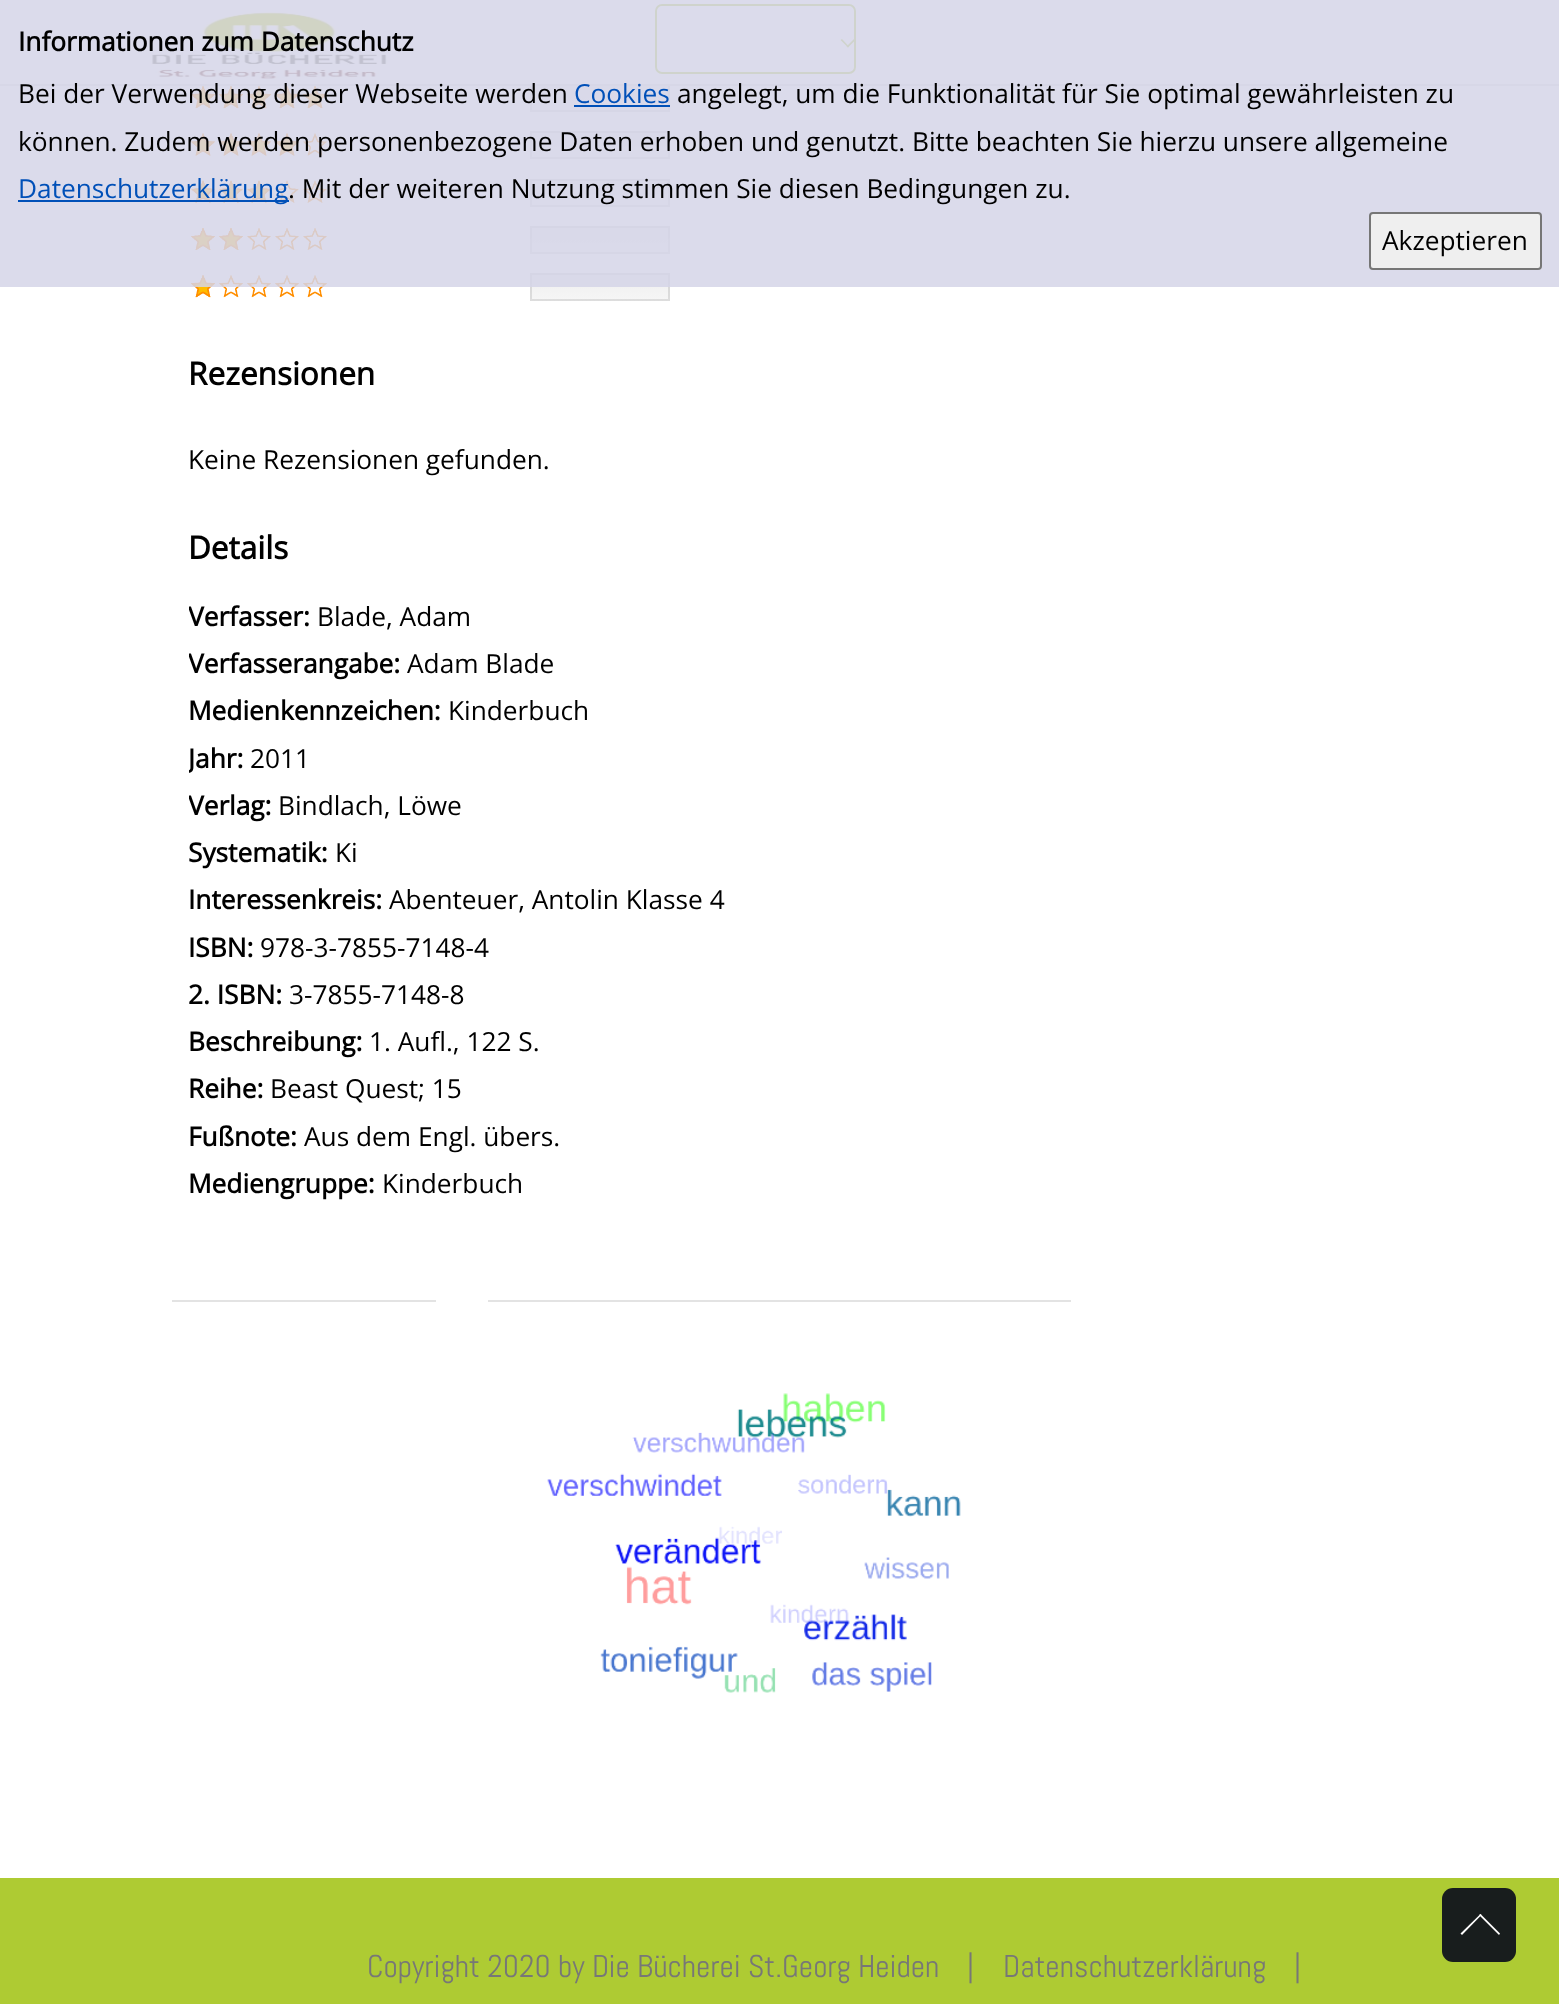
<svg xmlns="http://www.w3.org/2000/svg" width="1559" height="2004">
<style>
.a{font:bold 26.25px Open Sans;fill:#000}
.b{font:26.25px Open Sans;fill:#000}
.c{font:26.25px Open Sans;fill:#0050b8}
.d{font:bold 31.5px Open Sans;fill:#000}
.e{font:31.5px Abel;fill:#777}
</style>
<defs>
<linearGradient id="g1" gradientUnits="userSpaceOnUse" x1="600" y1="84" x2="600" y2="112"><stop offset="0" stop-color="#eee"/><stop offset="1" stop-color="#f6f6f6"/></linearGradient>
<linearGradient id="g2" gradientUnits="userSpaceOnUse" x1="600" y1="131" x2="600" y2="159"><stop offset="0" stop-color="#eee"/><stop offset="1" stop-color="#f6f6f6"/></linearGradient>
<linearGradient id="g3" gradientUnits="userSpaceOnUse" x1="600" y1="179" x2="600" y2="207"><stop offset="0" stop-color="#eee"/><stop offset="1" stop-color="#f6f6f6"/></linearGradient>
<linearGradient id="g4" gradientUnits="userSpaceOnUse" x1="600" y1="226" x2="600" y2="254"><stop offset="0" stop-color="#eee"/><stop offset="1" stop-color="#f6f6f6"/></linearGradient>
<linearGradient id="g5" gradientUnits="userSpaceOnUse" x1="600" y1="273" x2="600" y2="301"><stop offset="0" stop-color="#eee"/><stop offset="1" stop-color="#f6f6f6"/></linearGradient>
<clipPath id="clip1"><path d="M189 593h1183v48H189z"/></clipPath>
<clipPath id="clip2"><path d="M189 641h1183v47H189z"/></clipPath>
<clipPath id="clip3"><path d="M189 735h1183v47H189z"/></clipPath>
<clipPath id="clip4"><path d="M189 782h1183v48H189z"/></clipPath>
</defs>
<rect width="100%" height="100%" fill="#fff"/>
<path fill="url(#g1)" d="M530 86h140v26H530z"/>
<path fill="none" stroke="#0000001a" stroke-width="2" d="M531 85h138v26H531z"/>
<path fill="#e3e3e3" d="M0 84h1559v2H0z"/>
<image href="1.png" x="150" y="11" width="238" height="69"/>
<rect fill="none" stroke="#aecb33" stroke-width="2" x="656" y="5" width="199" height="68" rx="6"/>
<path fill="#aecb33" d="M854 39l1.5 1l-7.5 7.5l-1.5-1z"/>
<path fill="#aecb33" d="M842 39l7 7.5l-1 1l-7.5-7.5z"/>
<image href="2.png" x="191" y="86" width="136" height="23"/>
<image href="3.png" x="191" y="86" width="136" height="23"/>
<image href="4.png" x="191" y="133" width="136" height="23"/>
<image href="5.png" x="191" y="133" width="108" height="23"/>
<image href="6.png" x="191" y="180" width="136" height="23"/>
<image href="7.png" x="191" y="180" width="80" height="23"/>
<image href="8.png" x="191" y="228" width="136" height="22"/>
<image href="9.png" x="191" y="228" width="52" height="22"/>
<image href="10.png" x="191" y="275" width="136" height="23"/>
<image href="11.png" x="191" y="275" width="24" height="23"/>
<path fill="url(#g2)" d="M530 131h140v28H530z"/>
<path fill="none" stroke="#0000001a" stroke-width="2" d="M531 132h138v26H531z"/>
<path fill="url(#g3)" d="M530 179h140v28H530z"/>
<path fill="none" stroke="#0000001a" stroke-width="2" d="M531 180h138v26H531z"/>
<path fill="url(#g4)" d="M530 226h140v28H530z"/>
<path fill="none" stroke="#0000001a" stroke-width="2" d="M531 227h138v26H531z"/>
<path fill="url(#g5)" d="M530 273h140v28H530z"/>
<path fill="none" stroke="#0000001a" stroke-width="2" d="M531 274h138v26H531z"/>
<path fill="#d5d5e7d9" d="M0 0h1559v287H0z"/>
<path fill="#0050b8" d="M574 105h96v2H574z"/>
<path fill="#0050b8" d="M18 200h271v2H18z"/>
<rect fill="#efefef" stroke="#767676" stroke-width="2" x="1370" y="213" width="171" height="56" rx="3"/>
<path fill="#e3e3e3" d="M172 1300h264v2H172z"/>
<path fill="#e3e3e3" d="M488 1300h583v2H488z"/>
<image href="12.png" x="547" y="1393" width="414" height="300"/>
<path fill="#aecb33" d="M0 1878h1559v126H0z"/>
<rect fill="#181d1d" x="1442" y="1888" width="74" height="74" rx="11"/>
<path fill="#fff" d="M1462 1935l-1.5-1.5l20-19.5l1 1z"/>
<path fill="#fff" d="M1499 1935l-20-20l1.5-1l19.5 19.5z"/>
<text class="a" x="18" y="51">Informationen zum Datenschutz</text>
<text class="b" x="18" y="103">Bei der Verwendung dieser Webseite werden</text>
<text class="c" x="574" y="103">Cookies</text>
<text class="b" x="677" y="103">angelegt, um die Funktionalität für Sie optimal gewährleisten zu</text>
<text class="b" x="18" y="151">können. Zudem werden personenbezogene Daten erhoben und genutzt. Bitte beachten Sie hierzu unsere allgemeine</text>
<text class="c" x="18" y="198">Datenschutzerklärung</text>
<text class="b" x="288" y="198">. Mit der weiteren Nutzung stimmen Sie diesen Bedingungen zu.</text>
<text class="b" x="1382" y="250">Akzeptieren</text>
<text class="d" x="188" y="385">Rezensionen</text>
<text class="b" x="188" y="469">Keine Rezensionen gefunden.</text>
<text class="d" x="188" y="559">Details</text>
<g clip-path="url(#clip1)">
<text class="a" x="188" y="626">Verfasser:</text>
</g>
<text class="b" x="317" y="626">Blade, Adam</text>
<g clip-path="url(#clip2)">
<text class="a" x="188" y="673">Verfasserangabe:</text>
</g>
<text class="b" x="407" y="673">Adam Blade</text>
<text class="a" x="188" y="720">Medienkennzeichen:</text>
<text class="b" x="448" y="720">Kinderbuch</text>
<g clip-path="url(#clip3)">
<text class="a" x="188" y="768">Jahr:</text>
</g>
<text class="b" x="250" y="768">2011</text>
<g clip-path="url(#clip4)">
<text class="a" x="188" y="815">Verlag:</text>
</g>
<text class="b" x="278" y="815">Bindlach, Löwe</text>
<text class="a" x="188" y="862">Systematik:</text>
<text class="b" x="335" y="862">Ki</text>
<text class="a" x="188" y="909">Interessenkreis:</text>
<text class="b" x="389" y="909">Abenteuer, Antolin Klasse 4</text>
<text class="a" x="188" y="957">ISBN:</text>
<text class="b" x="260" y="957">978-3-7855-7148-4</text>
<text class="a" x="188" y="1004">2. ISBN:</text>
<text class="b" x="289" y="1004">3-7855-7148-8</text>
<text class="a" x="188" y="1051">Beschreibung:</text>
<text class="b" x="369" y="1051">1. Aufl., 122 S.</text>
<text class="a" x="188" y="1098">Reihe:</text>
<text class="b" x="270" y="1098">Beast Quest; 15</text>
<text class="a" x="188" y="1146">Fußnote:</text>
<text class="b" x="304" y="1146">Aus dem Engl. übers.</text>
<text class="a" x="188" y="1193">Mediengruppe:</text>
<text class="b" x="382" y="1193">Kinderbuch</text>
<text class="e" x="367" y="1977">Copyright 2020 by Die Bücherei St.Georg Heiden</text>
<text class="e" x="967" y="1977">|</text>
<text class="e" x="1003" y="1977">Datenschutzerklärung</text>
<text class="e" x="1294" y="1977">|</text>
</svg>
